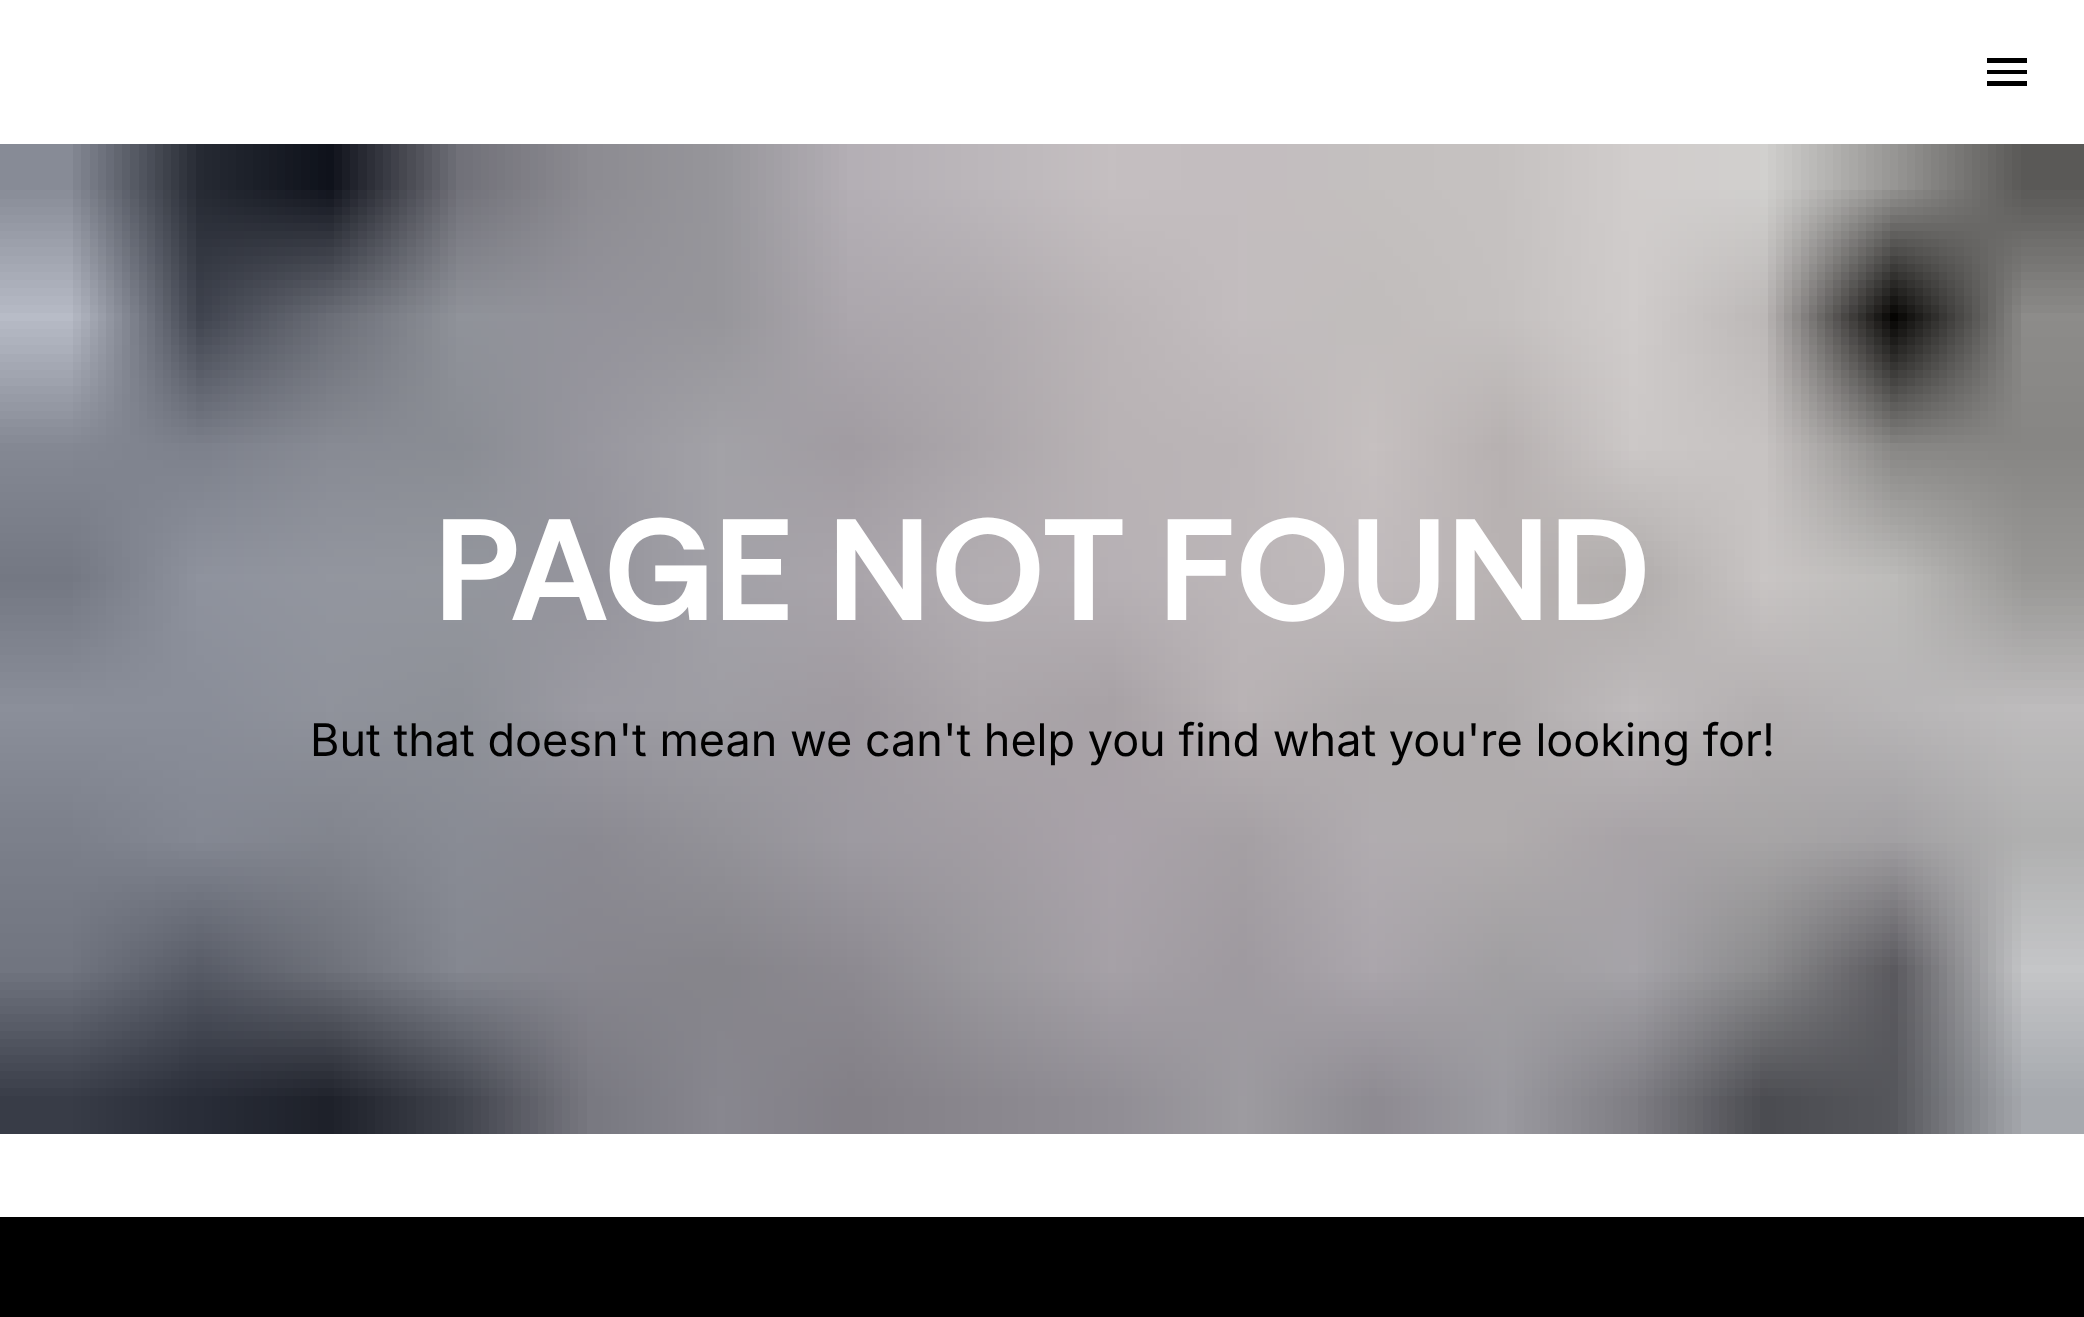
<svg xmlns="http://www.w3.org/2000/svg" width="2084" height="1317">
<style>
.a{font:bold 144px Rethink Sans;fill:#fff}
.b{font:45px Inter;fill:#000}
</style>
<rect width="100%" height="100%" fill="#000"/>
<path fill="#fff" d="M0 0h2084v144H0z"/>
<path fill="#000" d="M1987 86h40v-5h-40zm0-12h40v-4h-40zm0-16v5h40v-5z"/>
<image href="1.png" x="0" y="144" width="2084" height="990"/>
<path fill="#fff" d="M0 1134h2084v83H0z"/>
<text class="a" x="434" y="620">PAGE NOT FOUND</text>
<text class="b" x="310" y="756">But that doesn't mean we can't help you find what you're looking for!</text>
</svg>
